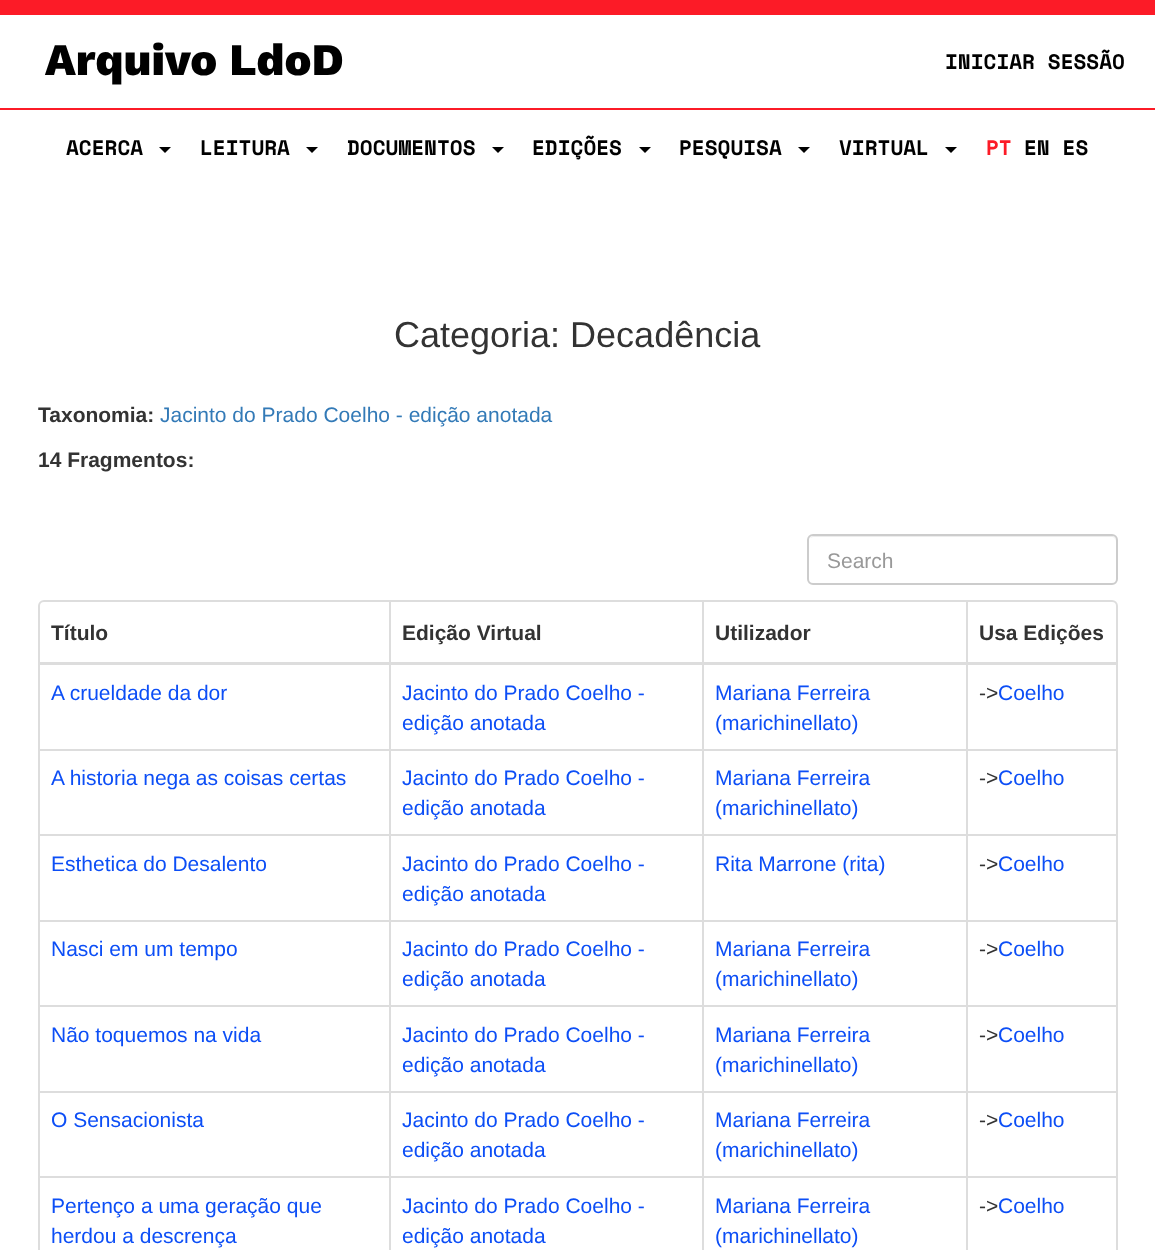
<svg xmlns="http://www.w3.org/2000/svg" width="1155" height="1250">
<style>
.a{font:800 45px Work Sans;fill:#000}
.b{font:bold 21px Space Mono;fill:#000}
.c{font:bold 21px Space Mono;fill:#fc1b27}
.d{font:36px Liberation Sans;fill:#333}
.e{font:bold 21px Liberation Sans;fill:#333}
.f{font:21px Liberation Sans;fill:#337ab7}
.g{font:21px Liberation Sans;fill:#999}
.h{font:21px Liberation Sans;fill:#0c4ef6}
.i{font:21px Liberation Sans;fill:#333}
</style>
<rect width="100%" height="100%" fill="#fff"/>
<path fill="#fc1b27" d="M0 0h1155v15H0z"/>
<path fill="#fc1b27" d="M0 108h1155v2H0z"/>
<path fill="#000" d="M159 147h12l-6 6z"/>
<path fill="#000" d="M306 147h12l-6 6z"/>
<path fill="#000" d="M492 147h12l-6 6z"/>
<path fill="#000" d="M639 147h12l-6 6z"/>
<path fill="#000" d="M798 147h12l-6 6z"/>
<path fill="#000" d="M945 147h12l-6 6z"/>
<path fill="#ececec" d="M813 537h299c2 0 4 2 4 5v-1c0-3-2-5-5-5h-297c-2 0-3 1-4 2z"/>
<rect fill="none" stroke="#ccc" stroke-width="2" x="808" y="535" width="309" height="49" rx="5"/>
<rect fill="none" stroke="#ddd" stroke-width="2" x="39" y="601" width="1078" height="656" rx="5"/>
<path fill="#ddd" d="M966 749h150v2H966z"/>
<path fill="#ddd" d="M966 834h150v2H966z"/>
<path fill="#ddd" d="M966 920h150v2H966z"/>
<path fill="#ddd" d="M966 1005h150v2H966z"/>
<path fill="#ddd" d="M966 1091h150v2H966z"/>
<path fill="#ddd" d="M966 1176h150v2H966z"/>
<path fill="#ddd" d="M966 1176h2v74H966z"/>
<path fill="#ddd" d="M702 1176h266v2H702z"/>
<path fill="#ddd" d="M966 1091h2v87H966z"/>
<path fill="#ddd" d="M702 1091h266v2H702z"/>
<path fill="#ddd" d="M966 1005h2v87H966z"/>
<path fill="#ddd" d="M702 1005h266v2H702z"/>
<path fill="#ddd" d="M966 920h2v87H966z"/>
<path fill="#ddd" d="M702 920h266v2H702z"/>
<path fill="#ddd" d="M966 834h2v87H966z"/>
<path fill="#ddd" d="M702 834h266v2H702z"/>
<path fill="#ddd" d="M966 749h2v87H966z"/>
<path fill="#ddd" d="M702 749h266v2H702z"/>
<path fill="#ddd" d="M702 1176h2v74H702z"/>
<path fill="#ddd" d="M389 1176h315v2H389z"/>
<path fill="#ddd" d="M702 1091h2v87H702z"/>
<path fill="#ddd" d="M389 1091h315v2H389z"/>
<path fill="#ddd" d="M702 1005h2v87H702z"/>
<path fill="#ddd" d="M389 1005h315v2H389z"/>
<path fill="#ddd" d="M702 920h2v87H702z"/>
<path fill="#ddd" d="M389 920h315v2H389z"/>
<path fill="#ddd" d="M702 834h2v87H702z"/>
<path fill="#ddd" d="M389 834h315v2H389z"/>
<path fill="#ddd" d="M702 749h2v87H702z"/>
<path fill="#ddd" d="M389 749h315v2H389z"/>
<path fill="#ddd" d="M389 1176h2v74H389z"/>
<path fill="#ddd" d="M39 1176h351v2H39z"/>
<path fill="#ddd" d="M389 1091h2v87H389z"/>
<path fill="#ddd" d="M39 1091h351v2H39z"/>
<path fill="#ddd" d="M389 1005h2v87H389z"/>
<path fill="#ddd" d="M39 1005h351v2H39z"/>
<path fill="#ddd" d="M389 920h2v87H389z"/>
<path fill="#ddd" d="M39 920h351v2H39z"/>
<path fill="#ddd" d="M389 834h2v87H389z"/>
<path fill="#ddd" d="M39 834h351v2H39z"/>
<path fill="#ddd" d="M389 749h2v87H389z"/>
<path fill="#ddd" d="M39 749h351v2H39z"/>
<path fill="#ddd" d="M389 602h2v148H389z"/>
<path fill="#ddd" d="M702 602h2v148H702z"/>
<path fill="#ddd" d="M966 602h2v148H966z"/>
<path fill="#ddd" d="M39 662h1077v3H39z"/>
<text class="a" x="45" y="75">Arquivo LdoD</text>
<text class="b" x="945" y="69">INICIAR SESSÃO</text>
<text class="b" x="66" y="155">ACERCA</text>
<text class="b" x="200" y="155">LEITURA</text>
<text class="b" x="347" y="155">DOCUMENTOS</text>
<text class="b" x="532" y="155">EDIÇÕES</text>
<text class="b" x="679" y="155">PESQUISA</text>
<text class="b" x="839" y="155">VIRTUAL</text>
<text class="c" x="986" y="155">PT</text>
<text class="b" x="1024" y="155">EN ES</text>
<text class="d" x="394" y="347">Categoria: Decadência</text>
<text class="e" x="38" y="422">Taxonomia:</text>
<text class="f" x="160" y="422">Jacinto do Prado Coelho - edição anotada</text>
<text class="e" x="38" y="467">14 Fragmentos:</text>
<text class="g" x="827" y="568">Search</text>
<text class="e" x="51" y="640">Título</text>
<text class="e" x="402" y="640">Edição Virtual</text>
<text class="e" x="715" y="640">Utilizador</text>
<text class="e" x="979" y="640">Usa Edições</text>
<text class="h" x="51" y="700">A crueldade da dor</text>
<text class="h" x="402" y="700">Jacinto do Prado Coelho -</text>
<text class="h" x="402" y="730">edição anotada</text>
<text class="h" x="715" y="700">Mariana Ferreira</text>
<text class="h" x="715" y="730">(marichinellato)</text>
<text class="i" x="979" y="700">-&gt;</text>
<text class="h" x="998" y="700">Coelho</text>
<text class="h" x="51" y="785">A historia nega as coisas certas</text>
<text class="h" x="402" y="785">Jacinto do Prado Coelho -</text>
<text class="h" x="402" y="815">edição anotada</text>
<text class="h" x="715" y="785">Mariana Ferreira</text>
<text class="h" x="715" y="815">(marichinellato)</text>
<text class="i" x="979" y="785">-&gt;</text>
<text class="h" x="998" y="785">Coelho</text>
<text class="h" x="51" y="871">Esthetica do Desalento</text>
<text class="h" x="402" y="871">Jacinto do Prado Coelho -</text>
<text class="h" x="402" y="901">edição anotada</text>
<text class="h" x="715" y="871">Rita Marrone (rita)</text>
<text class="i" x="979" y="871">-&gt;</text>
<text class="h" x="998" y="871">Coelho</text>
<text class="h" x="51" y="956">Nasci em um tempo</text>
<text class="h" x="402" y="956">Jacinto do Prado Coelho -</text>
<text class="h" x="402" y="986">edição anotada</text>
<text class="h" x="715" y="956">Mariana Ferreira</text>
<text class="h" x="715" y="986">(marichinellato)</text>
<text class="i" x="979" y="956">-&gt;</text>
<text class="h" x="998" y="956">Coelho</text>
<text class="h" x="51" y="1042">Não toquemos na vida</text>
<text class="h" x="402" y="1042">Jacinto do Prado Coelho -</text>
<text class="h" x="402" y="1072">edição anotada</text>
<text class="h" x="715" y="1042">Mariana Ferreira</text>
<text class="h" x="715" y="1072">(marichinellato)</text>
<text class="i" x="979" y="1042">-&gt;</text>
<text class="h" x="998" y="1042">Coelho</text>
<text class="h" x="51" y="1127">O Sensacionista</text>
<text class="h" x="402" y="1127">Jacinto do Prado Coelho -</text>
<text class="h" x="402" y="1157">edição anotada</text>
<text class="h" x="715" y="1127">Mariana Ferreira</text>
<text class="h" x="715" y="1157">(marichinellato)</text>
<text class="i" x="979" y="1127">-&gt;</text>
<text class="h" x="998" y="1127">Coelho</text>
<text class="h" x="51" y="1213">Pertenço a uma geração que</text>
<text class="h" x="51" y="1243">herdou a descrença</text>
<text class="h" x="402" y="1213">Jacinto do Prado Coelho -</text>
<text class="h" x="402" y="1243">edição anotada</text>
<text class="h" x="715" y="1213">Mariana Ferreira</text>
<text class="h" x="715" y="1243">(marichinellato)</text>
<text class="i" x="979" y="1213">-&gt;</text>
<text class="h" x="998" y="1213">Coelho</text>
</svg>
